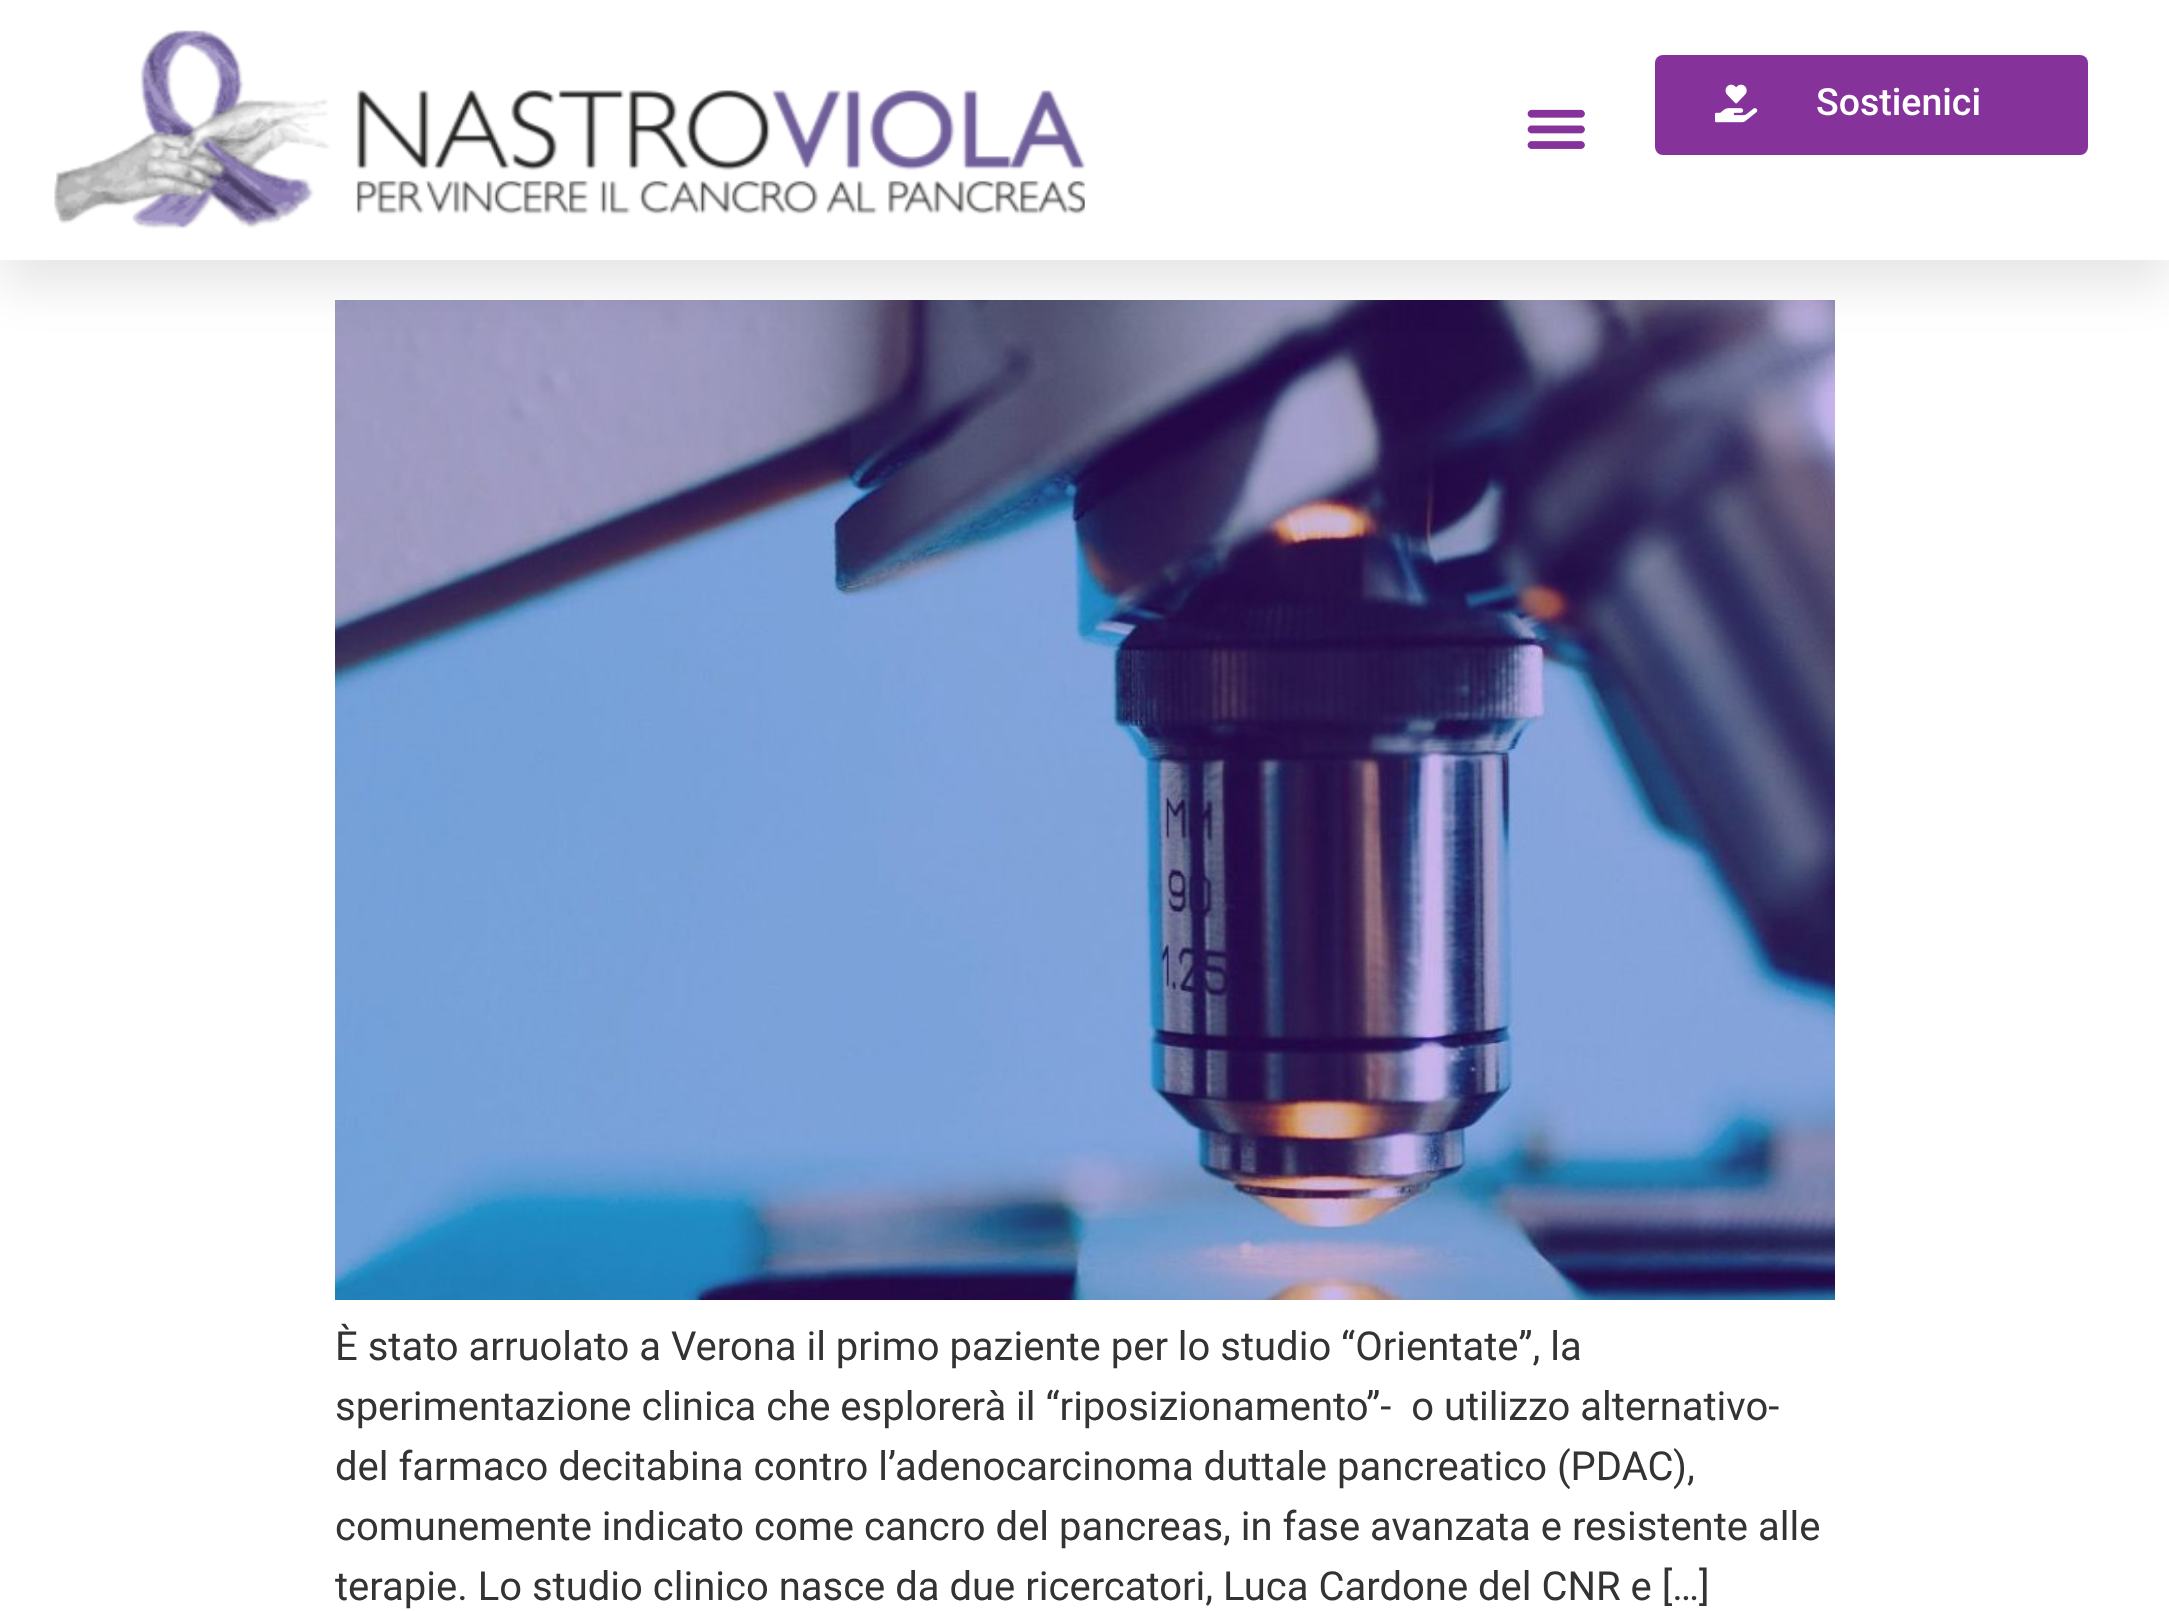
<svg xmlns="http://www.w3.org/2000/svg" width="2169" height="1611">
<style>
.a{font:500 37.5px Roboto;fill:#fff}
.b{font:40px Roboto;fill:#333}
</style>
<rect width="100%" height="100%" fill="#fff"/>
<image href="4.png" x="335" y="300" width="1500" height="1000"/>
<path fill="#0000001a" filter="blur(25px)" d="M0 25h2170v260H0z"/>
<path fill="#fff" d="M0 0h2169v260H0z"/>
<image href="1.png" x="54" y="30" width="1031" height="199"/>
<rect fill="#85329a" x="1655" y="55" width="433" height="100" rx="8"/>
<image href="2.png" x="1715" y="84" width="43" height="39"/>
<image href="3.png" x="1527" y="109" width="58" height="40"/>
<text class="a" x="1816" y="115">Sostienici</text>
<text class="b" x="335" y="1360">È stato arruolato a Verona il primo paziente per lo studio “Orientate”, la</text>
<text class="b" xml:space="preserve" x="335" y="1420">sperimentazione clinica che esplorerà il “riposizionamento”-  o utilizzo alternativo-</text>
<text class="b" x="335" y="1480">del farmaco decitabina contro l’adenocarcinoma duttale pancreatico (PDAC),</text>
<text class="b" x="335" y="1540">comunemente indicato come cancro del pancreas, in fase avanzata e resistente alle</text>
<text class="b" x="335" y="1600">terapie. Lo studio clinico nasce da due ricercatori, Luca Cardone del CNR e […]</text>
</svg>
